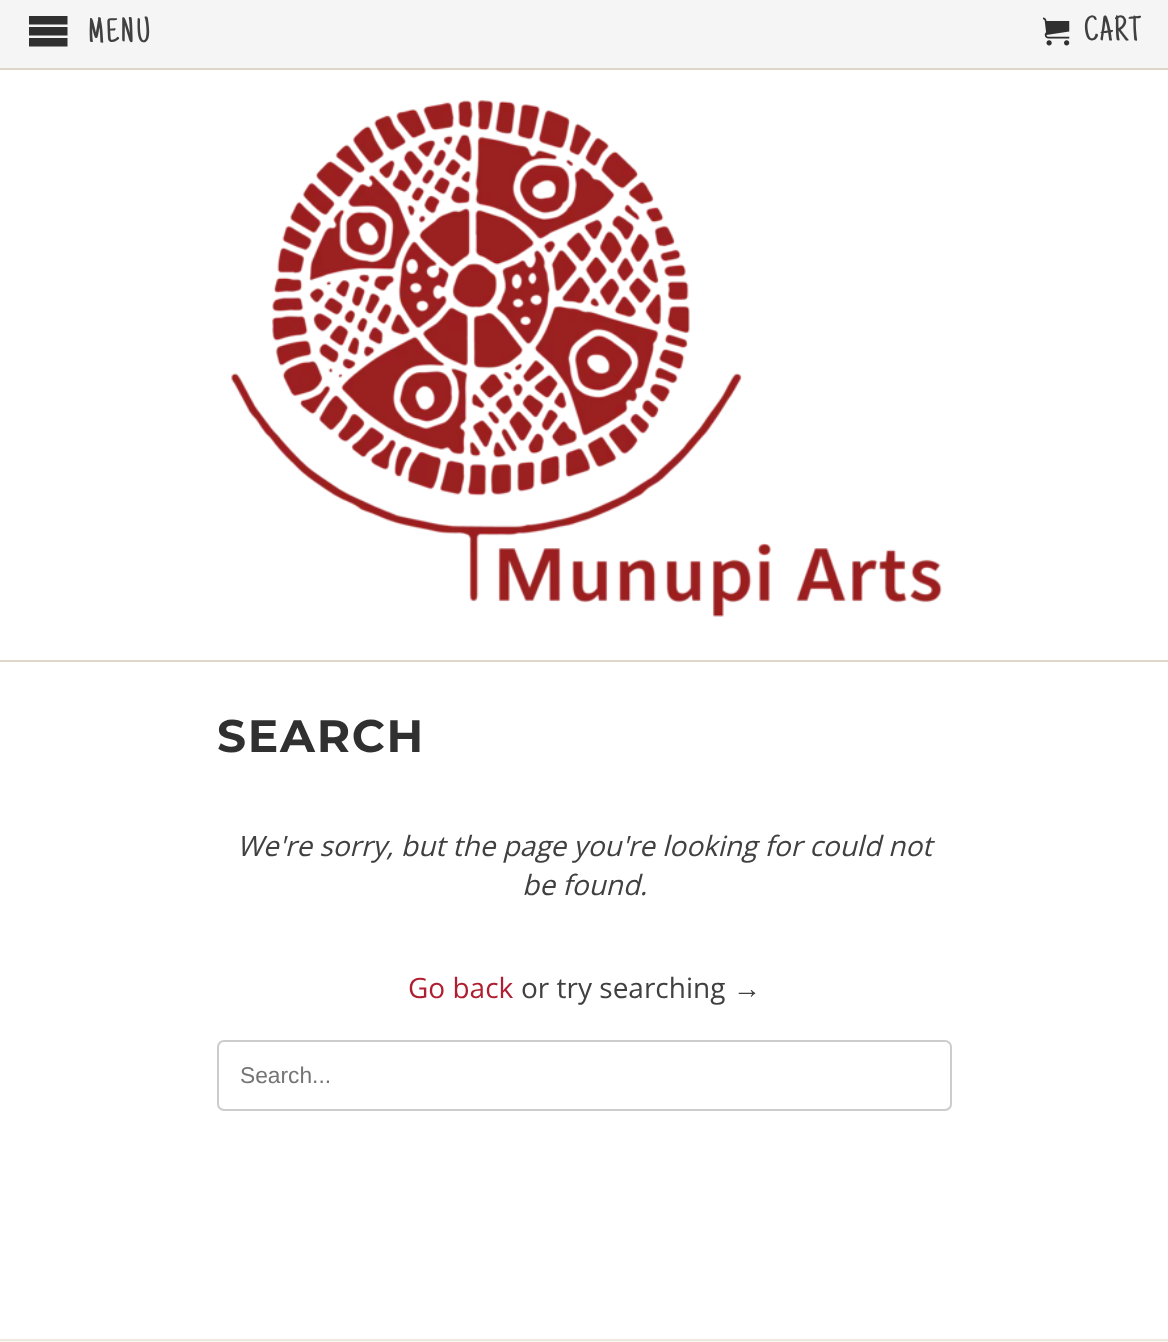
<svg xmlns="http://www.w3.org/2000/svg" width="1168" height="1342">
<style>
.a{font:35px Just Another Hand;letter-spacing:1.75px;fill:#404040}
.b{font:bold 45.5px Montserrat;letter-spacing:1.75px;fill:#303030}
.c{font:italic 28px Open Sans;fill:#404040}
.d{font:28px Open Sans;fill:#af1f31}
.e{font:28px Open Sans;fill:#404040}
.f{font:28px Liberation Serif;fill:#404040}
.g{font:22.75px Liberation Sans;fill:#757575}
</style>
<rect width="100%" height="100%" fill="#fff"/>
<path fill="#f5f5f5" d="M0 0h1168v68H0z"/>
<path fill="#ded6c7" d="M0 68h1168v2H0z"/>
<path fill="#303030" d="M29 16v8.5h38.5v-8.5zm0 11v8.5h38.5v-8.5zm0 11v8.5h38.5v-8.5z"/>
<image href="1.png" x="1043" y="17" width="27" height="29"/>
<path fill="#ded6c7" d="M0 660h1168v2H0z"/>
<image href="2.png" x="231" y="100" width="711" height="517"/>
<rect fill="none" stroke="#ccc" stroke-width="2" x="218" y="1041" width="733" height="69" rx="6"/>
<path fill="#f9f7f3" d="M0 1341h1168v1H0z"/>
<path fill="#ede9dd" d="M0 1339h1168v2H0z"/>
<text class="a" x="88" y="42">MENU</text>
<text class="a" x="1084" y="40">CART</text>
<text class="b" x="217" y="752">SEARCH</text>
<text class="c" x="237" y="856">We're sorry, but the page you're looking for could not</text>
<text class="c" x="522" y="895">be found.</text>
<text class="d" x="408" y="998">Go back</text>
<text class="e" x="521" y="998">or try searching</text>
<text class="f" x="733" y="998">→</text>
<text class="g" x="240" y="1083">Search...</text>
</svg>
